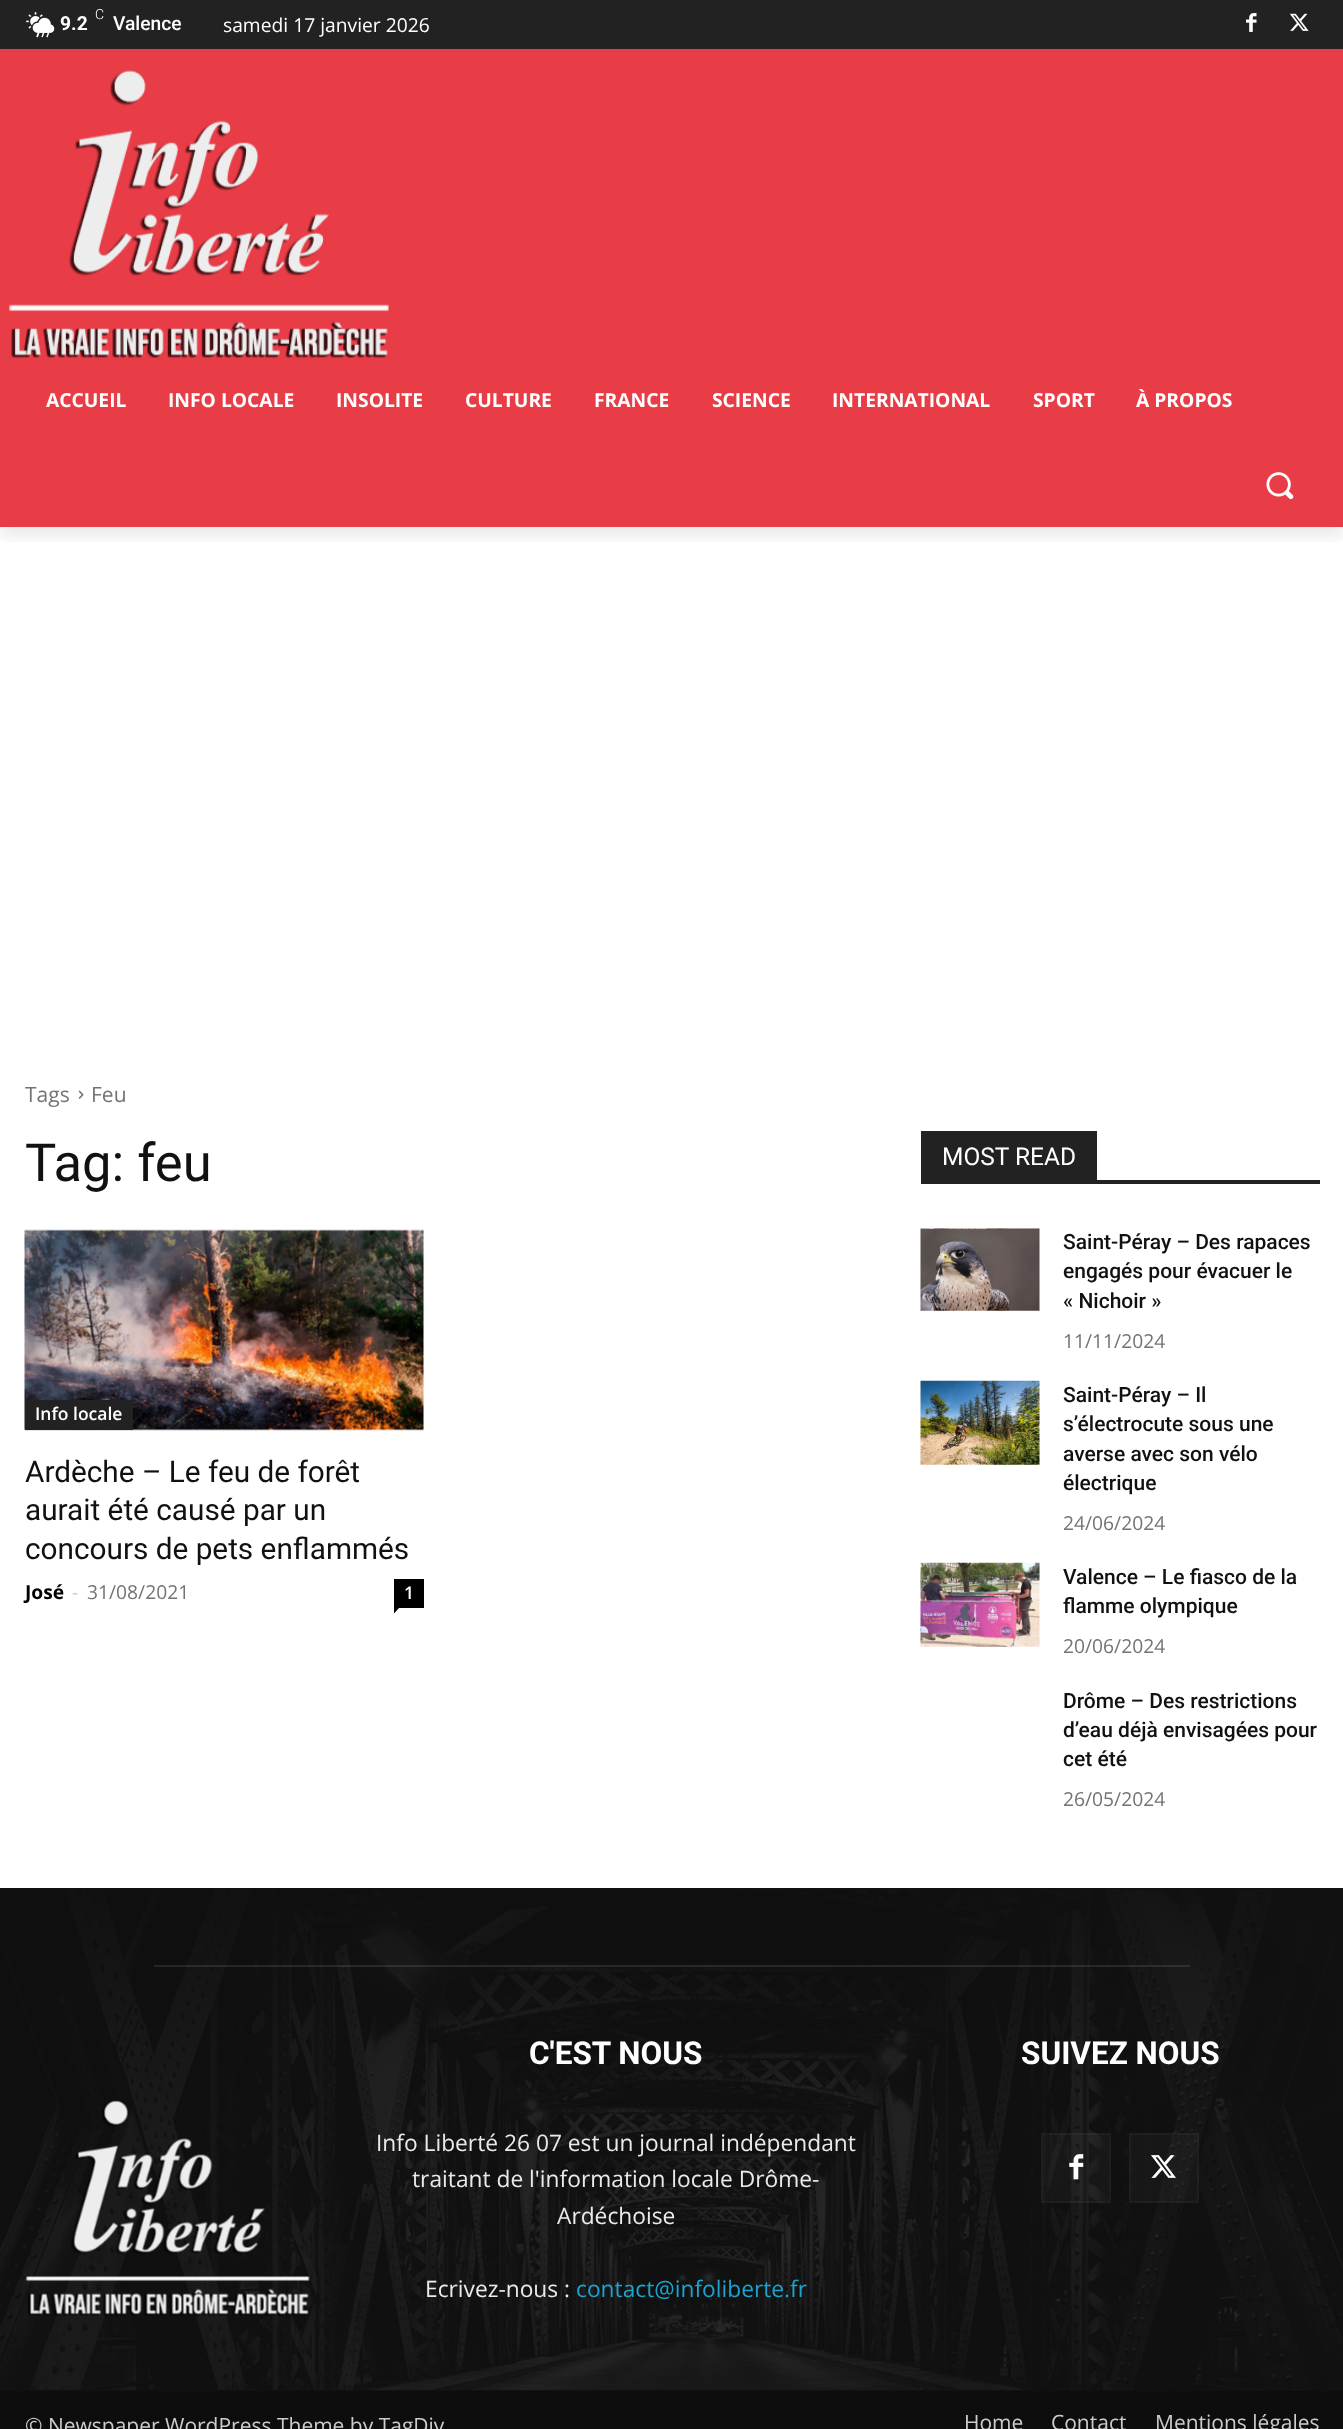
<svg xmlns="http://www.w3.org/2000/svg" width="1343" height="2429">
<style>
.a{font:300 14px Roboto;fill:#fff}
.b{font:bold 19.25px Roboto;fill:#fff}
.c{font:500 19.25px Roboto;fill:#fff}
.d{font:19.25px Open Sans;fill:#fff}
.e{font:bold 19.25px Open Sans;fill:#fff}
.f{font:21px Open Sans;fill:#747474}
.g{font:52.5px Roboto;fill:#111}
.h{font:600 17.5px Open Sans;fill:#fff}
.i{font:29.75px Roboto;fill:#111}
.j{font:bold 19.25px Open Sans;fill:#000}
.k{font:19.25px Open Sans;fill:#ccc}
.l{font:19.25px Open Sans;fill:#747474}
.m{font:24.5px Roboto;fill:#fff}
.n{font:500 21px Roboto;fill:#111}
.o{font:bold 31.5px Roboto;fill:#fff}
.p{font:22.75px Open Sans;fill:#eaeaea}
.q{font:22.75px Open Sans;fill:#1aa4ce}
.r{font:21px Open Sans;fill:#ccc}
</style>
<defs>
<clipPath id="clip1"><path d="M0 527h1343v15H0z"/></clipPath>
</defs>
<rect width="100%" height="100%" fill="#fff"/>
<path fill="#222" d="M0 0h1343v49H0z"/>
<image href="1.png" x="26" y="12" width="29" height="26"/>
<image href="2.png" x="1246" y="13" width="11" height="19"/>
<image href="3.png" x="1289" y="13" width="20" height="18"/>
<path fill="#e83c47" d="M0 49h1343v478H0z"/>
<image href="4.png" x="9" y="70" width="380" height="288"/>
<g clip-path="url(#clip1)">
<path fill="#00000014" filter="blur(7px)" d="M0 11h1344v526H0z"/>
</g>
<image href="5.png" x="1266" y="472" width="28" height="28"/>
<image href="6.png" x="78" y="1090" width="6" height="9"/>
<image href="7.png" x="24" y="1229" width="400" height="202"/>
<path fill="#222" d="M25 1400h108v30H25z"/>
<path fill="#000" d="M394 1579h30v29H394z"/>
<path fill="#000" d="M394 1608h5l-5 5.5z"/>
<path fill="#222" d="M921 1180h399v4H921z"/>
<path fill="#222" d="M921 1131h176v49H921z"/>
<image href="8.png" x="920" y="1228" width="120" height="83"/>
<image href="9.png" x="920" y="1380" width="120" height="85"/>
<image href="10.png" x="920" y="1562" width="120" height="85"/>
<path fill="#111" d="M0 1888h1343v503H0z"/>
<image href="11.png" x="0" y="1889" width="1343" height="501"/>
<path fill="#ffffff1a" d="M154 1965h1036v2H154z"/>
<path fill="#ffffff08" d="M1041 2133h70v70H1041z"/>
<path fill="none" stroke="#ffffff08" stroke-width="2" d="M1042 2134h68v68H1042z"/>
<image href="12.png" x="1069" y="2154" width="15" height="26"/>
<path fill="#ffffff08" d="M1129 2133h70v70H1129z"/>
<path fill="none" stroke="#ffffff08" stroke-width="2" d="M1130 2134h68v68H1130z"/>
<image href="13.png" x="1151" y="2155" width="25" height="23"/>
<image href="14.png" x="25" y="2100" width="285" height="216"/>
<path fill="#0d0d0d" d="M0 2391h1343v38H0z"/>
<text class="a" x="95" y="19">C</text>
<text class="b" x="60" y="30">9.2</text>
<text class="c" x="113" y="30">Valence</text>
<text class="d" x="223" y="32">samedi 17 janvier 2026</text>
<text class="e" x="46" y="407">ACCUEIL</text>
<text class="e" x="168" y="407">INFO LOCALE</text>
<text class="e" x="336" y="407">INSOLITE</text>
<text class="e" x="465" y="407">CULTURE</text>
<text class="e" x="594" y="407">FRANCE</text>
<text class="e" x="712" y="407">SCIENCE</text>
<text class="e" x="832" y="407">INTERNATIONAL</text>
<text class="e" x="1033" y="407">SPORT</text>
<text class="e" x="1136" y="407">À PROPOS</text>
<text class="f" x="25" y="1102">Tags</text>
<text class="f" x="91" y="1102">Feu</text>
<text class="g" x="25" y="1181">Tag: feu</text>
<text class="h" x="35" y="1420">Info locale</text>
<text class="i" x="25" y="1482">Ardèche – Le feu de forêt</text>
<text class="i" x="25" y="1520">aurait été causé par un</text>
<text class="i" x="25" y="1559">concours de pets enflammés</text>
<text class="j" x="25" y="1599">José</text>
<text class="k" x="72" y="1599">-</text>
<text class="l" x="87" y="1599">31/08/2021</text>
<text class="h" x="404" y="1599">1</text>
<text class="m" x="942" y="1165">MOST READ</text>
<text class="n" x="1063" y="1249">Saint-Péray – Des rapaces</text>
<text class="n" x="1063" y="1278">engagés pour évacuer le</text>
<text class="n" x="1063" y="1308">« Nichoir »</text>
<text class="l" x="1063" y="1348">11/11/2024</text>
<text class="n" x="1063" y="1402">Saint-Péray – Il</text>
<text class="n" x="1063" y="1431">s’électrocute sous une</text>
<text class="n" x="1063" y="1461">averse avec son vélo</text>
<text class="n" x="1063" y="1490">électrique</text>
<text class="l" x="1063" y="1530">24/06/2024</text>
<text class="n" x="1063" y="1584">Valence – Le fiasco de la</text>
<text class="n" x="1063" y="1613">flamme olympique</text>
<text class="l" x="1063" y="1653">20/06/2024</text>
<text class="n" x="1063" y="1708">Drôme – Des restrictions</text>
<text class="n" x="1063" y="1737">d’eau déjà envisagées pour</text>
<text class="n" x="1063" y="1766">cet été</text>
<text class="l" x="1063" y="1806">26/05/2024</text>
<text class="o" x="529" y="2064">C'EST NOUS</text>
<text class="p" x="376" y="2151">Info Liberté 26 07 est un journal indépendant</text>
<text class="p" x="412" y="2187">traitant de l'information locale Drôme-</text>
<text class="p" x="557" y="2224">Ardéchoise</text>
<text class="p" x="425" y="2297">Ecrivez-nous :</text>
<text class="q" x="576" y="2297">contact@infoliberte.fr</text>
<text class="o" x="1021" y="2064">SUIVEZ NOUS</text>
<text class="r" x="25" y="2433">© Newspaper WordPress Theme by TagDiv</text>
<text class="r" x="964" y="2430">Home</text>
<text class="r" x="1051" y="2430">Contact</text>
<text class="r" x="1155" y="2430">Mentions légales</text>
</svg>
